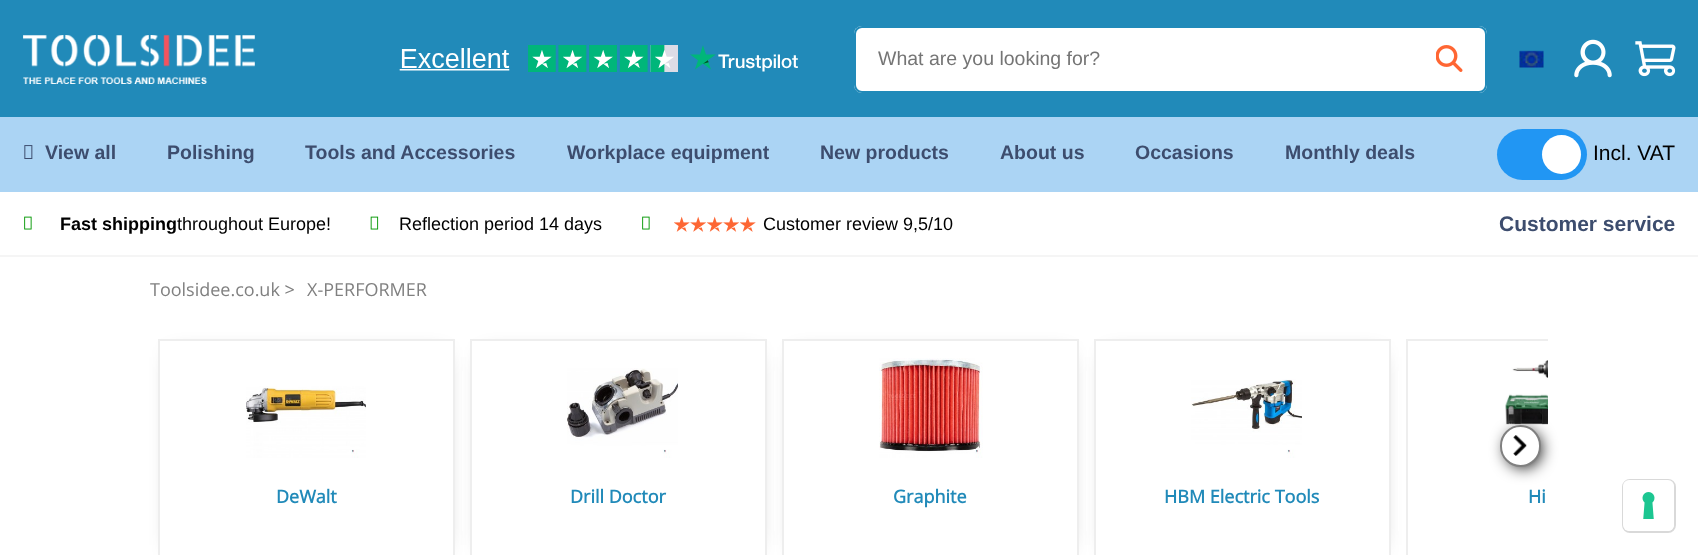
<svg xmlns="http://www.w3.org/2000/svg" width="1698" height="555">
<style>
.a{font:19.5px Liberation Sans;fill:#757575}
.b{font:bold 19.5px Liberation Sans;fill:#3d4d6e}
.c{font:21px Liberation Sans;fill:#000}
.d{font:bold 18px Liberation Sans;fill:#000}
.e{font:18px Liberation Sans;fill:#000}
.f{font:bold 21px Liberation Sans;fill:#3d4d6e}
.g{font:18px Open Sans;fill:#808080}
.h{font:bold 18px Open Sans;fill:#218ab9}
</style>
<defs>
<clipPath id="clip1"><path d="M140 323h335v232h-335zm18 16h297v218h-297z" clip-rule="evenodd"/></clipPath>
<clipPath id="clip2"><path d="M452 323h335v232h-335zm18 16h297v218h-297z" clip-rule="evenodd"/></clipPath>
<clipPath id="clip3"><path d="M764 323h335v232h-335zm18 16h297v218h-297z" clip-rule="evenodd"/></clipPath>
<clipPath id="clip4"><path d="M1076 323h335v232h-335zm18 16h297v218h-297z" clip-rule="evenodd"/></clipPath>
<clipPath id="clip5"><path d="M150 332h1398v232H150z"/></clipPath>
</defs>
<rect width="100%" height="100%" fill="#fff"/>
<path fill="#218ab9" d="M0 0h1698v117H0z"/>
<image href="1.png" x="23" y="35" width="232" height="49"/>
<image href="2.png" x="399" y="45" width="399" height="27"/>
<rect fill="#fff" x="854" y="26" width="633" height="67" rx="8"/>
<image href="3.png" x="1436" y="45" width="27" height="27"/>
<rect fill="none" stroke="#218ab9" stroke-width="2" x="855" y="27" width="631" height="65" rx="7"/>
<image href="4.png" x="1519" y="50" width="25" height="18"/>
<image href="5.png" x="1574" y="39" width="38" height="39"/>
<image href="6.png" x="1635" y="41" width="41" height="36"/>
<path fill="#abd4f4" d="M0 117h1698v75H0z"/>
<image href="7.png" x="24" y="145" width="9" height="14"/>
<rect fill="#2196f3" x="1497" y="129" width="90" height="51" rx="25.5"/>
<circle fill="#fff" cx="1561.5" cy="154.5" r="19.5"/>
<path fill="#f5f5f5" d="M0 255h1698v2H0z"/>
<image href="8.png" x="24" y="216" width="8" height="14"/>
<image href="9.png" x="370" y="216" width="9" height="14"/>
<image href="8.png" x="642" y="216" width="8" height="14"/>
<image href="10.png" x="674" y="216" width="16" height="16"/>
<image href="11.png" x="690" y="216" width="17" height="16"/>
<image href="10.png" x="707" y="216" width="16" height="16"/>
<image href="11.png" x="723" y="216" width="17" height="16"/>
<image href="10.png" x="740" y="216" width="16" height="16"/>
<g clip-path="url(#clip1)">
<path fill="#00000070" filter="blur(11px)" d="M174 357h267v188H174z"/>
</g>
<path fill="none" stroke="#eee" stroke-width="2" d="M159 340h295v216H159z"/>
<path fill="#fff" d="M462 371h1v160H462z"/>
<g clip-path="url(#clip2)">
<path fill="#00000070" filter="blur(11px)" d="M486 357h267v188H486z"/>
</g>
<path fill="none" stroke="#eee" stroke-width="2" d="M471 340h295v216H471z"/>
<path fill="#fff" d="M774 371h1v160H774z"/>
<g clip-path="url(#clip3)">
<path fill="#00000070" filter="blur(11px)" d="M798 357h267v188H798z"/>
</g>
<path fill="none" stroke="#eee" stroke-width="2" d="M783 340h295v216H783z"/>
<path fill="#fff" d="M1086 371h1v160H1086z"/>
<g clip-path="url(#clip4)">
<path fill="#00000070" filter="blur(11px)" d="M1110 357h267v188H1110z"/>
</g>
<g clip-path="url(#clip5)">
<path fill="none" stroke="#eee" stroke-width="2" d="M1407 340h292v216H1407z"/>
</g>
<image href="17.png" x="1505" y="360" width="43" height="65"/>
<rect fill="#000" filter="blur(8px)" x="1506" y="431" width="35" height="36" rx="17.5"/>
<rect fill="#fff" stroke="#808080" stroke-width="2" x="1501" y="426" width="39" height="40" rx="19.5"/>
<image href="12.png" x="1513" y="435" width="14" height="21"/>
<image href="13.png" x="246" y="386" width="120" height="72"/>
<image href="14.png" x="567" y="368" width="111" height="90"/>
<image href="15.png" x="879" y="358" width="104" height="100"/>
<path fill="none" stroke="#eee" stroke-width="2" d="M1095 340h295v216H1095z"/>
<image href="16.png" x="1191" y="379" width="111" height="79"/>
<path fill="#fff" d="M1398 371h1v160H1398z"/>
<rect fill="none" stroke="#d9d9d9" stroke-width="2" x="1623" y="480" width="52" height="52" rx="7"/>
<rect fill="#fff" x="1623" y="480" width="51" height="51" rx="6"/>
<image href="18.png" x="1642" y="492" width="13" height="27"/>
<text class="a" x="878" y="65">What are you looking for?</text>
<text class="b" x="45" y="159">View all</text>
<text class="b" x="167" y="159">Polishing</text>
<text class="b" x="305" y="159">Tools and Accessories</text>
<text class="b" x="567" y="159">Workplace equipment</text>
<text class="b" x="820" y="159">New products</text>
<text class="b" x="1000" y="159">About us</text>
<text class="b" x="1135" y="159">Occasions</text>
<text class="b" x="1285" y="159">Monthly deals</text>
<text class="c" x="1593" y="160">Incl. VAT</text>
<text class="d" x="60" y="230">Fast shipping</text>
<text class="e" x="177" y="230">throughout Europe!</text>
<text class="e" x="399" y="230">Reflection period 14 days</text>
<text class="e" x="763" y="230">Customer review 9,5/10</text>
<text class="f" x="1499" y="231">Customer service</text>
<text class="g" x="150" y="296">Toolsidee.co.uk &gt;</text>
<text class="g" x="307" y="296">X-PERFORMER</text>
<text class="h" x="276" y="503">DeWalt</text>
<text class="h" x="570" y="503">Drill Doctor</text>
<text class="h" x="893" y="503">Graphite</text>
<text class="h" x="1164" y="503">HBM Electric Tools</text>
<text class="h" x="1528" y="503">Hi</text>
</svg>
